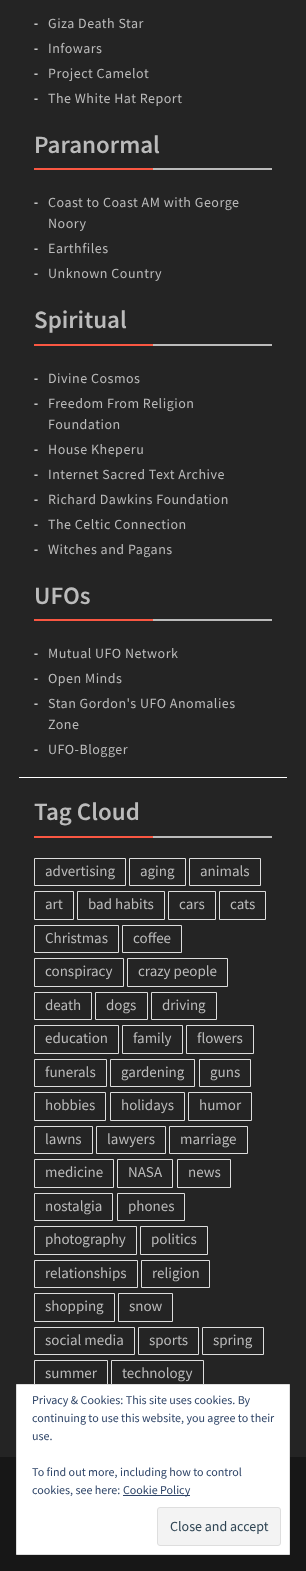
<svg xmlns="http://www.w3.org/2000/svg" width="306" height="1571">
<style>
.a{font:bold 12px Liberation Serif;letter-spacing:0.5px;fill:#fff}
.b{font:14px Source Sans Pro;letter-spacing:0.5px;fill:#bbb}
.c{font:600 25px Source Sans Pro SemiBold;fill:#bbb}
.d{font:15px Source Sans Pro;fill:#bbb}
.e{font:12px Source Sans Pro;fill:#2e4467}
.f{font:14px Source Sans Pro;fill:#2e4453}
</style>
<rect width="100%" height="100%" fill="#171717"/>
<path fill="#242424" d="M0 0h306v1457H0z"/>
<path fill="#bbb" d="M153 168h119v2H153z"/>
<path fill="#fa5742" d="M34 168h119v2H34z"/>
<path fill="#bbb" d="M153 344h119v2H153z"/>
<path fill="#fa5742" d="M34 344h119v2H34z"/>
<path fill="#bbb" d="M153 619h119v2H153z"/>
<path fill="#fa5742" d="M34 619h119v2H34z"/>
<path fill="#fff" d="M19 777h268v1H19z"/>
<path fill="#bbb" d="M153 836h119v2H153z"/>
<path fill="#fa5742" d="M34 836h119v2H34z"/>
<path fill="none" stroke="#ddd" d="M34.5 858.5h91v27H34.5z"/>
<path fill="none" stroke="#ddd" d="M129.5 858.5h56v27H129.5z"/>
<path fill="none" stroke="#ddd" d="M189.5 858.5h71v27H189.5z"/>
<path fill="none" stroke="#ddd" d="M34.5 891.5h39v28H34.5z"/>
<path fill="none" stroke="#ddd" d="M77.5 891.5h87v28H77.5z"/>
<path fill="none" stroke="#ddd" d="M168.5 891.5h47v28H168.5z"/>
<path fill="none" stroke="#ddd" d="M219.5 891.5h46v28H219.5z"/>
<path fill="none" stroke="#ddd" d="M34.5 925.5h84v27H34.5z"/>
<path fill="none" stroke="#ddd" d="M122.5 925.5h59v27H122.5z"/>
<path fill="none" stroke="#ddd" d="M34.5 958.5h89v28H34.5z"/>
<path fill="none" stroke="#ddd" d="M127.5 958.5h100v28H127.5z"/>
<path fill="none" stroke="#ddd" d="M34.5 992.5h57v27H34.5z"/>
<path fill="none" stroke="#ddd" d="M95.5 992.5h52v27H95.5z"/>
<path fill="none" stroke="#ddd" d="M151.5 992.5h65v27H151.5z"/>
<path fill="none" stroke="#ddd" d="M34.5 1025.5h84v28H34.5z"/>
<path fill="none" stroke="#ddd" d="M122.5 1025.5h60v28H122.5z"/>
<path fill="none" stroke="#ddd" d="M186.5 1025.5h67v28H186.5z"/>
<path fill="none" stroke="#ddd" d="M34.5 1059.5h72v27H34.5z"/>
<path fill="none" stroke="#ddd" d="M110.5 1059.5h84v27H110.5z"/>
<path fill="none" stroke="#ddd" d="M199.5 1059.5h51v27H199.5z"/>
<path fill="none" stroke="#ddd" d="M34.5 1092.5h71v28H34.5z"/>
<path fill="none" stroke="#ddd" d="M110.5 1092.5h74v28H110.5z"/>
<path fill="none" stroke="#ddd" d="M188.5 1092.5h63v28H188.5z"/>
<path fill="none" stroke="#ddd" d="M34.5 1126.5h58v27H34.5z"/>
<path fill="none" stroke="#ddd" d="M96.5 1126.5h69v27H96.5z"/>
<path fill="none" stroke="#ddd" d="M169.5 1126.5h78v27H169.5z"/>
<path fill="none" stroke="#ddd" d="M34.5 1159.5h79v28H34.5z"/>
<path fill="none" stroke="#ddd" d="M117.5 1159.5h55v28H117.5z"/>
<path fill="none" stroke="#ddd" d="M177.5 1159.5h53v28H177.5z"/>
<path fill="none" stroke="#ddd" d="M34.5 1193.5h78v27H34.5z"/>
<path fill="none" stroke="#ddd" d="M117.5 1193.5h67v27H117.5z"/>
<path fill="none" stroke="#ddd" d="M34.5 1226.5h102v28H34.5z"/>
<path fill="none" stroke="#ddd" d="M140.5 1226.5h67v28H140.5z"/>
<path fill="none" stroke="#ddd" d="M34.5 1260.5h103v27H34.5z"/>
<path fill="none" stroke="#ddd" d="M141.5 1260.5h68v27H141.5z"/>
<path fill="none" stroke="#ddd" d="M34.5 1293.5h80v28H34.5z"/>
<path fill="none" stroke="#ddd" d="M118.5 1293.5h54v28H118.5z"/>
<path fill="none" stroke="#ddd" d="M34.5 1327.5h100v27H34.5z"/>
<path fill="none" stroke="#ddd" d="M138.5 1327.5h60v27H138.5z"/>
<path fill="none" stroke="#ddd" d="M202.5 1327.5h61v27H202.5z"/>
<path fill="none" stroke="#ddd" d="M34.5 1360.5h73v28H34.5z"/>
<path fill="none" stroke="#ddd" d="M111.5 1360.5h92v28H111.5z"/>
<path fill="#fff" stroke="#dedede" d="M16.5 1384.5h273v170H16.5z"/>
<path fill="#2e4467" d="M123 1495h67v1H123z"/>
<rect fill="#f3f3f3" stroke="#dedede" x="157.5" y="1507.5" width="123" height="38" rx="2.5"/>
<text class="a" x="34" y="27">-</text>
<text class="b" x="48" y="28">Giza Death Star</text>
<text class="a" x="34" y="52">-</text>
<text class="b" x="48" y="53">Infowars</text>
<text class="a" x="34" y="77">-</text>
<text class="b" x="48" y="78">Project Camelot</text>
<text class="a" x="34" y="102">-</text>
<text class="b" x="48" y="103">The White Hat Report</text>
<text class="c" x="34" y="153">Paranormal</text>
<text class="a" x="34" y="206">-</text>
<text class="b" x="48" y="207">Coast to Coast AM with George</text>
<text class="b" x="48" y="228">Noory</text>
<text class="a" x="34" y="252">-</text>
<text class="b" x="48" y="253">Earthfiles</text>
<text class="a" x="34" y="277">-</text>
<text class="b" x="48" y="278">Unknown Country</text>
<text class="c" x="34" y="328">Spiritual</text>
<text class="a" x="34" y="382">-</text>
<text class="b" x="48" y="383">Divine Cosmos</text>
<text class="a" x="34" y="407">-</text>
<text class="b" x="48" y="408">Freedom From Religion</text>
<text class="b" x="48" y="429">Foundation</text>
<text class="a" x="34" y="453">-</text>
<text class="b" x="48" y="454">House Kheperu</text>
<text class="a" x="34" y="478">-</text>
<text class="b" x="48" y="479">Internet Sacred Text Archive</text>
<text class="a" x="34" y="503">-</text>
<text class="b" x="48" y="504">Richard Dawkins Foundation</text>
<text class="a" x="34" y="528">-</text>
<text class="b" x="48" y="529">The Celtic Connection</text>
<text class="a" x="34" y="553">-</text>
<text class="b" x="48" y="554">Witches and Pagans</text>
<text class="c" x="34" y="604">UFOs</text>
<text class="a" x="34" y="657">-</text>
<text class="b" x="48" y="658">Mutual UFO Network</text>
<text class="a" x="34" y="682">-</text>
<text class="b" x="48" y="683">Open Minds</text>
<text class="a" x="34" y="707">-</text>
<text class="b" x="48" y="708">Stan Gordon's UFO Anomalies</text>
<text class="b" x="48" y="729">Zone</text>
<text class="a" x="34" y="753">-</text>
<text class="b" x="48" y="754">UFO-Blogger</text>
<text class="c" x="34" y="820">Tag Cloud</text>
<text class="d" x="45" y="876">advertising</text>
<text class="d" x="140" y="876">aging</text>
<text class="d" x="200" y="876">animals</text>
<text class="d" x="45" y="909">art</text>
<text class="d" x="88" y="909">bad habits</text>
<text class="d" x="179" y="909">cars</text>
<text class="d" x="230" y="909">cats</text>
<text class="d" x="45" y="943">Christmas</text>
<text class="d" x="133" y="943">coffee</text>
<text class="d" x="45" y="976">conspiracy</text>
<text class="d" x="138" y="976">crazy people</text>
<text class="d" x="45" y="1010">death</text>
<text class="d" x="106" y="1010">dogs</text>
<text class="d" x="162" y="1010">driving</text>
<text class="d" x="45" y="1043">education</text>
<text class="d" x="133" y="1043">family</text>
<text class="d" x="197" y="1043">flowers</text>
<text class="d" x="45" y="1077">funerals</text>
<text class="d" x="121" y="1077">gardening</text>
<text class="d" x="210" y="1077">guns</text>
<text class="d" x="45" y="1110">hobbies</text>
<text class="d" x="121" y="1110">holidays</text>
<text class="d" x="199" y="1110">humor</text>
<text class="d" x="45" y="1144">lawns</text>
<text class="d" x="107" y="1144">lawyers</text>
<text class="d" x="180" y="1144">marriage</text>
<text class="d" x="45" y="1177">medicine</text>
<text class="d" x="128" y="1177">NASA</text>
<text class="d" x="188" y="1177">news</text>
<text class="d" x="45" y="1211">nostalgia</text>
<text class="d" x="128" y="1211">phones</text>
<text class="d" x="45" y="1244">photography</text>
<text class="d" x="151" y="1244">politics</text>
<text class="d" x="45" y="1278">relationships</text>
<text class="d" x="152" y="1278">religion</text>
<text class="d" x="45" y="1311">shopping</text>
<text class="d" x="129" y="1311">snow</text>
<text class="d" x="45" y="1345">social media</text>
<text class="d" x="149" y="1345">sports</text>
<text class="d" x="213" y="1345">spring</text>
<text class="d" x="45" y="1378">summer</text>
<text class="d" x="122" y="1378">technology</text>
<text class="e" x="32" y="1404">Privacy &amp; Cookies: This site uses cookies. By</text>
<text class="e" x="32" y="1422">continuing to use this website, you agree to their</text>
<text class="e" x="32" y="1440">use.</text>
<text class="e" x="32" y="1476">To find out more, including how to control</text>
<text class="e" x="32" y="1494">cookies, see here:</text>
<text class="e" x="123" y="1494">Cookie Policy</text>
<text class="f" x="170" y="1531">Close and accept</text>
</svg>
